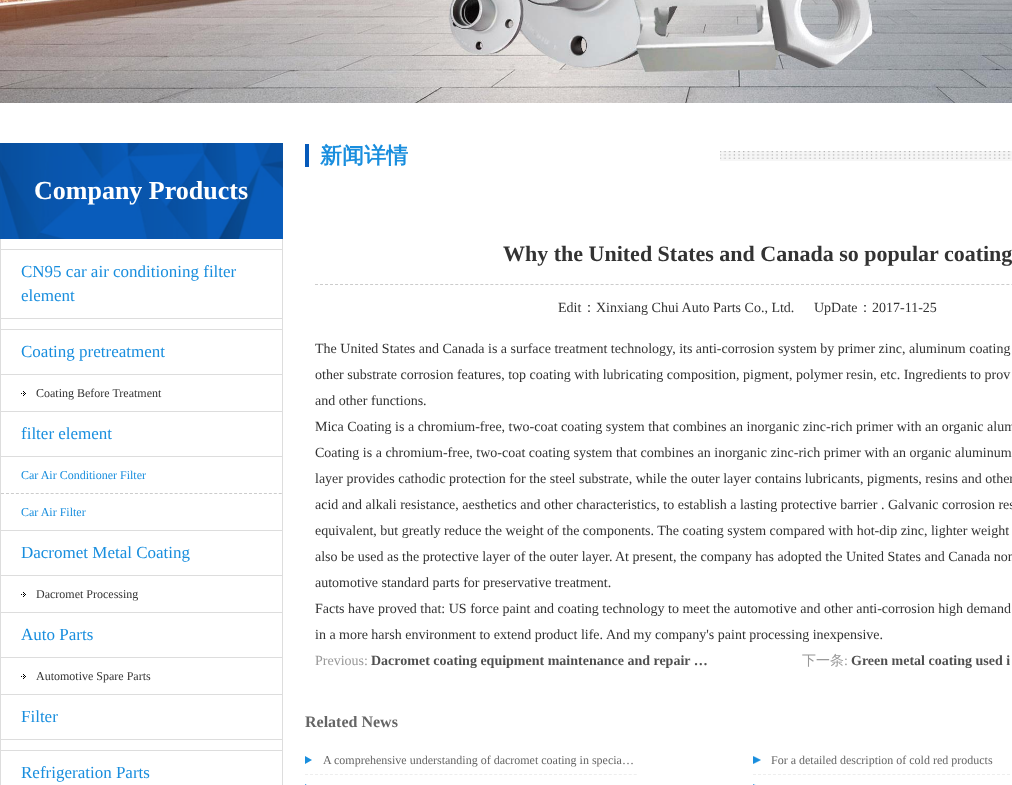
<svg xmlns="http://www.w3.org/2000/svg" width="1012" height="785">
<style>
.a{font:bold 26px Liberation Serif;fill:#fff}
.b{font:17px Liberation Serif;fill:#198ede}
.c{font:12px Liberation Serif;fill:#333}
.d{font:12px Liberation Serif;fill:#198ede}
.e{font:bold 22px WenQuanYi Zen Hei;fill:#198ede}
.f{font:bold 22px Liberation Serif;fill:#333}
.g{font:14px Liberation Serif;fill:#333}
.h{font:500 14px WenQuanYi Zen Hei;fill:#333}
.i{font:14px Liberation Serif;fill:#999}
.j{font:bold 14px Liberation Serif;fill:#505050}
.k{font:500 14px WenQuanYi Zen Hei;fill:#999}
.l{font:bold 16px Liberation Serif;fill:#666}
.m{font:12px Liberation Serif;fill:#666}
</style>
<rect width="100%" height="100%" fill="#fff"/>
<image href="1.png" x="0" y="0" width="1012" height="103"/>
<image href="2.png" x="0" y="143" width="283" height="96"/>
<path fill="#ddd" d="M282 239h1v546H282z"/>
<path fill="#ddd" d="M0 239h1v546H0z"/>
<path fill="#ddd" d="M1 249h281v1H1z"/>
<path fill="#ddd" d="M1 318h281v1H1z"/>
<path fill="#ddd" d="M1 329h281v1H1z"/>
<path fill="#ddd" d="M1 374h281v1H1z"/>
<image href="3.png" x="21" y="391" width="5" height="5"/>
<path fill="#ddd" d="M1 411h281v1H1z"/>
<path fill="#ddd" d="M1 456h281v1H1z"/>
<path fill="none" stroke="#ccc" stroke-dasharray="3 1.96" d="M1 493.5h281"/>
<path fill="#ddd" d="M1 530h281v1H1z"/>
<path fill="#ddd" d="M1 575h281v1H1z"/>
<image href="3.png" x="21" y="592" width="5" height="5"/>
<path fill="#ddd" d="M1 612h281v1H1z"/>
<path fill="#ddd" d="M1 657h281v1H1z"/>
<image href="3.png" x="21" y="674" width="5" height="5"/>
<path fill="#ddd" d="M1 694h281v1H1z"/>
<path fill="#ddd" d="M1 739h281v1H1z"/>
<path fill="#ddd" d="M1 750h281v1H1z"/>
<image href="4.png" x="720" y="151" width="292" height="10"/>
<path fill="#065aba" d="M305 144h4v23H305z"/>
<path fill="none" stroke="#ccc" stroke-dasharray="3 2.01" d="M315 284.5h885"/>
<image href="5.png" x="305" y="756" width="7" height="8"/>
<path fill="none" stroke="#eee" stroke-dasharray="3 1.98" d="M305 774.5h332"/>
<image href="6.png" x="753" y="756" width="8" height="8"/>
<path fill="none" stroke="#eee" stroke-dasharray="3 1.98" d="M753 774.5h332"/>
<image href="7.png" x="305" y="784" width="2" height="1"/>
<image href="8.png" x="753" y="784" width="3" height="1"/>
<text class="a" x="34" y="199">Company Products</text>
<text class="b" x="21" y="277">CN95 car air conditioning filter</text>
<text class="b" x="21" y="301">element</text>
<text class="b" x="21" y="357">Coating pretreatment</text>
<text class="c" x="36" y="397">Coating Before Treatment</text>
<text class="b" x="21" y="439">filter element</text>
<text class="d" x="21" y="479">Car Air Conditioner Filter</text>
<text class="d" x="21" y="516">Car Air Filter</text>
<text class="b" x="21" y="558">Dacromet Metal Coating</text>
<text class="c" x="36" y="598">Dacromet Processing</text>
<text class="b" x="21" y="640">Auto Parts</text>
<text class="c" x="36" y="680">Automotive Spare Parts</text>
<text class="b" x="21" y="722">Filter</text>
<text class="b" x="21" y="778">Refrigeration Parts</text>
<text class="e" x="320" y="163">新闻详情</text>
<text class="f" x="503" y="261">Why the United States and Canada so popular coating</text>
<text class="g" x="558" y="312">Edit</text>
<text class="h" x="582" y="312">：</text>
<text class="g" x="596" y="312">Xinxiang Chui Auto Parts Co., Ltd.</text>
<text class="g" x="814" y="312">UpDate</text>
<text class="h" x="858" y="312">：</text>
<text class="g" x="872" y="312">2017-11-25</text>
<text class="g" x="315" y="353">The United States and Canada is a surface treatment technology, its anti-corrosion system by primer zinc, aluminum coating</text>
<text class="g" x="315" y="379">other substrate corrosion features, top coating with lubricating composition, pigment, polymer resin, etc. Ingredients to prov</text>
<text class="g" x="315" y="405">and other functions.</text>
<text class="g" x="315" y="431">Mica Coating is a chromium-free, two-coat coating system that combines an inorganic zinc-rich primer with an organic alum</text>
<text class="g" x="315" y="457">Coating is a chromium-free, two-coat coating system that combines an inorganic zinc-rich primer with an organic aluminum</text>
<text class="g" x="315" y="483">layer provides cathodic protection for the steel substrate, while the outer layer contains lubricants, pigments, resins and other</text>
<text class="g" x="315" y="509">acid and alkali resistance, aesthetics and other characteristics, to establish a lasting protective barrier . Galvanic corrosion res</text>
<text class="g" x="315" y="535">equivalent, but greatly reduce the weight of the components. The coating system compared with hot-dip zinc, lighter weight</text>
<text class="g" x="315" y="561">also be used as the protective layer of the outer layer.</text>
<text class="g" x="615" y="561">At present, the company has adopted the United States and Canada non</text>
<text class="g" x="315" y="587">automotive standard parts for preservative treatment.</text>
<text class="g" x="315" y="613">Facts have proved that: US force paint and coating technology to meet the automotive and other anti-corrosion high demand</text>
<text class="g" x="315" y="639">in a more harsh environment to extend product life.</text>
<text class="g" x="606" y="639">And my company's paint processing inexpensive.</text>
<text class="i" x="315" y="665">Previous:</text>
<text class="j" x="371" y="665">Dacromet coating equipment maintenance and repair …</text>
<text class="k" x="802" y="665">下一条</text>
<text class="i" x="844" y="665">:</text>
<text class="j" x="851" y="665">Green metal coating used i</text>
<text class="l" x="305" y="727">Related News</text>
<text class="m" x="323" y="764">A comprehensive understanding of dacromet coating in specia…</text>
<text class="m" x="771" y="764">For a detailed description of cold red products</text>
</svg>
